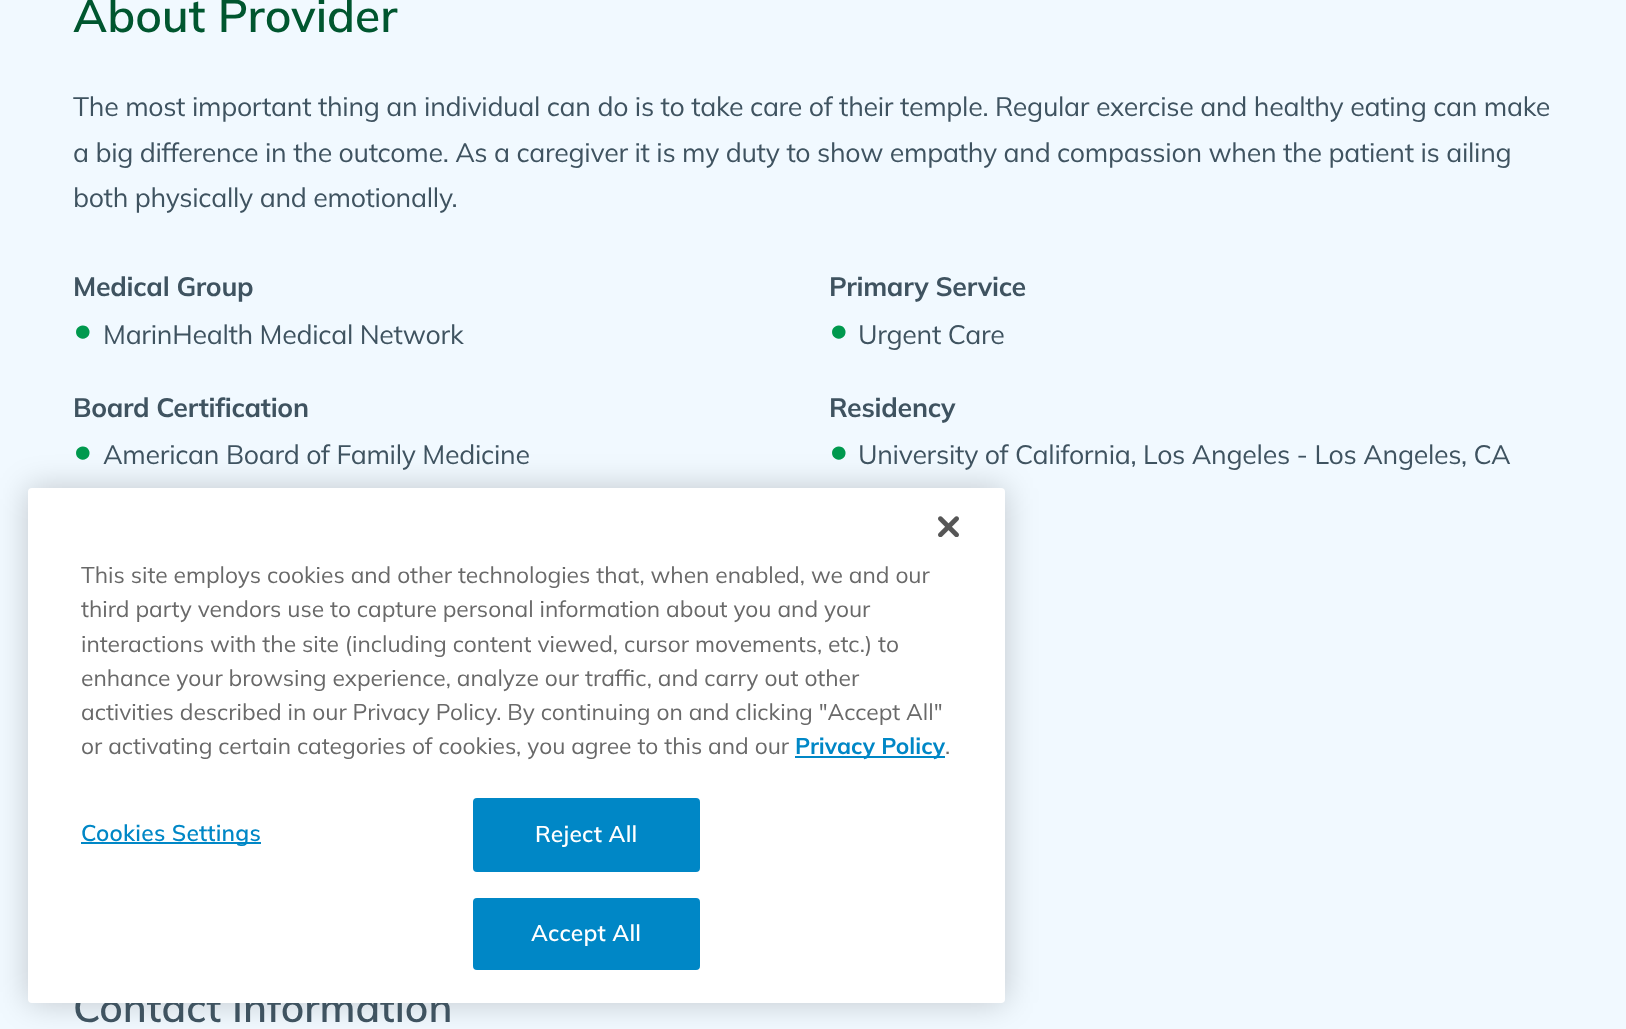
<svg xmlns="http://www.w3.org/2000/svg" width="1626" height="1029">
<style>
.a{font:600 46px Mulish;fill:#00562f}
.b{font:26.7px Mulish;letter-spacing:-0.27px;fill:#3f5360}
.c{font:bold 26.7px Mulish;letter-spacing:-0.27px;fill:#3f5360}
.d{font:37px Mulish;letter-spacing:-0.27px;fill:#00994e}
.e{font:600 40.5px Mulish;fill:#3f5360}
.f{font:22.75px Mulish;fill:#696969}
.g{font:bold 22.75px Mulish;fill:#0087c6}
.h{font:600 22.75px Mulish;letter-spacing:0.25px;fill:#0087c6}
.i{font:600 22.75px Mulish;letter-spacing:0.25px;fill:#fff}
</style>
<rect width="100%" height="100%" fill="#f1f9ff"/>
<rect fill="#00000033" filter="blur(16px)" x="28" y="488" width="977" height="515" rx="4"/>
<text class="a" x="73" y="32">About Provider</text>
<text class="b" x="73" y="116">The most important thing an individual can do is to take care of their temple. Regular exercise and healthy eating can make</text>
<text class="b" x="73" y="162">a big difference in the outcome. As a caregiver it is my duty to show empathy and compassion when the patient is ailing</text>
<text class="b" x="73" y="207">both physically and emotionally.</text>
<text class="c" x="73" y="296">Medical Group</text>
<text class="d" x="73" y="342">•</text>
<text class="b" x="103" y="344">MarinHealth Medical Network</text>
<text class="c" x="829" y="296">Primary Service</text>
<text class="d" x="829" y="342">•</text>
<text class="b" x="858" y="344">Urgent Care</text>
<text class="c" x="73" y="417">Board Certification</text>
<text class="d" x="73" y="463">•</text>
<text class="b" x="103" y="464">American Board of Family Medicine</text>
<text class="c" x="829" y="417">Residency</text>
<text class="d" x="829" y="463">•</text>
<text class="b" x="858" y="464">University of California, Los Angeles - Los Angeles, CA</text>
<text class="e" x="73" y="1022">Contact Information</text>
<rect fill="#fff" x="28" y="488" width="977" height="515" rx="4"/>
<image href="1.png" x="938" y="516" width="21" height="21"/>
<text class="f" x="81" y="583">This site employs cookies and other technologies that, when enabled, we and our</text>
<text class="f" x="81" y="617">third party vendors use to capture personal information about you and your</text>
<text class="f" x="81" y="652">interactions with the site (including content viewed, cursor movements, etc.) to</text>
<text class="f" x="81" y="686">enhance your browsing experience, analyze our traffic, and carry out other</text>
<text class="f" x="81" y="720">activities described in our Privacy Policy. By continuing on and clicking "Accept All"</text>
<text class="f" x="81" y="754">or activating certain categories of cookies, you agree to this and our</text>
<path fill="#0087c6" d="M795 756h150v2H795z"/>
<text class="g" x="795" y="754">Privacy Policy</text>
<text class="f" x="945" y="754">.</text>
<path fill="#0087c6" d="M81 842h180v2H81z"/>
<text class="h" x="81" y="841">Cookies Settings</text>
<rect fill="#0087c6" stroke="#0087c6" stroke-width="2" x="474" y="799" width="225" height="72" rx="3"/>
<text class="i" x="535" y="842">Reject All</text>
<rect fill="#0087c6" stroke="#0087c6" stroke-width="2" x="474" y="899" width="225" height="70" rx="3"/>
<text class="i" x="531" y="941">Accept All</text>
</svg>
